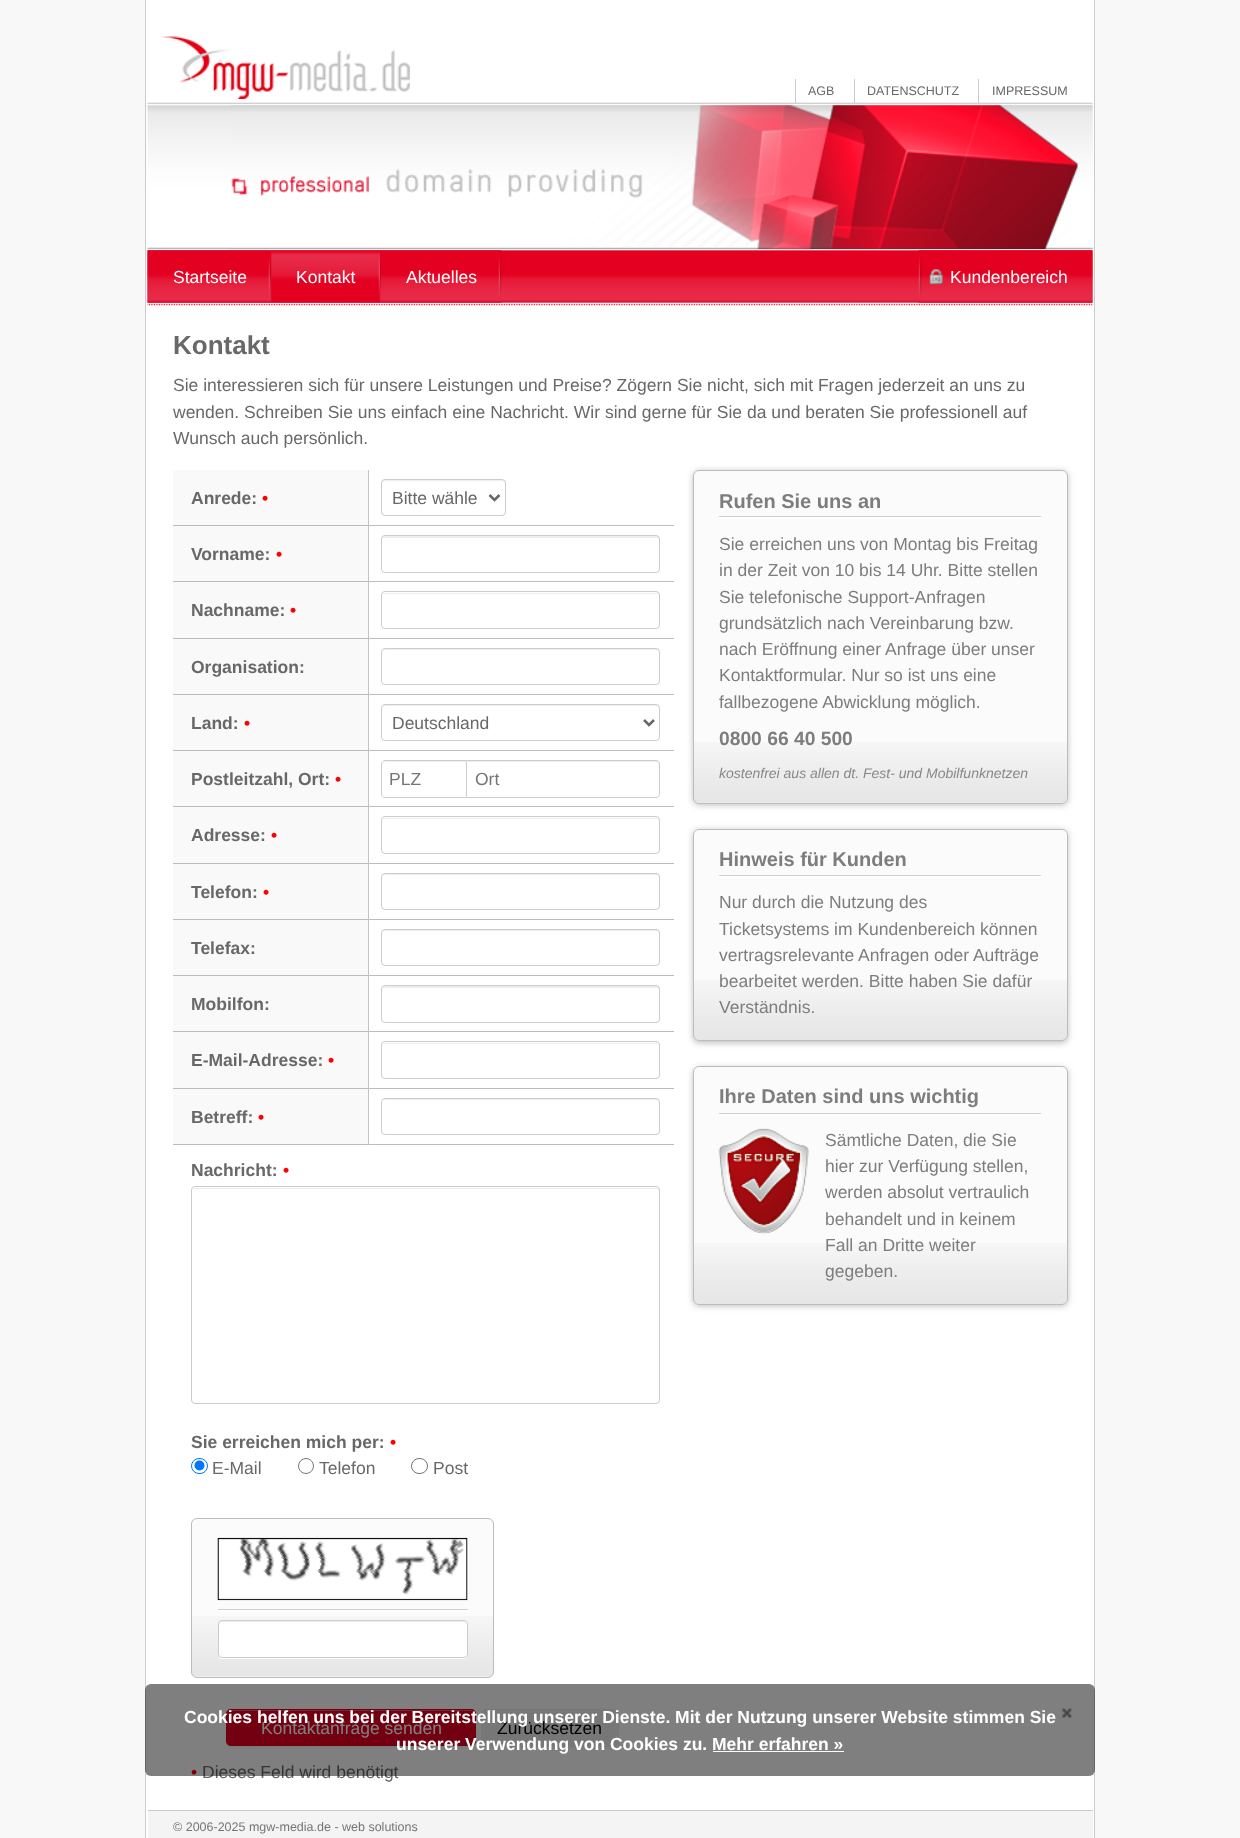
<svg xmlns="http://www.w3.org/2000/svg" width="1240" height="1838">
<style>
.a{font:12.5px Liberation Sans;fill:#686868}
.b{font:17.5px Liberation Sans;fill:#fff}
.c{font:bold 26px Liberation Sans;fill:#686868}
.d{font:17.5px Liberation Sans;fill:#686868}
.e{font:bold 17.5px Liberation Sans;fill:#686868}
.f{font:bold 17.5px Liberation Sans;fill:#f00}
.g{font:17.5px Liberation Sans;fill:#757575}
.h{font:17.5px Liberation Sans;fill:#000}
.i{font:17.5px Liberation Sans;fill:#f00}
.j{font:bold 20px Liberation Sans;fill:#7d7d7d}
.k{font:17.5px Liberation Sans;fill:#7d7d7d}
.l{font:bold 19.25px Liberation Sans;fill:#7d7d7d}
.m{font:italic 14px Liberation Sans;fill:#888}
.n{font:12.5px Liberation Sans;fill:#757575}
.o{font:bold 17.5px Liberation Sans;fill:#fff}
</style>
<rect width="100%" height="100%" fill="#f8f8f8"/>
<path fill="#fff" d="M146 0h948v1838H146z"/>
<path fill="#cbcbcb" d="M1094 0h1v1838H1094z"/>
<path fill="#cbcbcb" d="M145 0h1v1838H145z"/>
<image href="1.png" x="147" y="102" width="946" height="204"/>
<image href="2.png" x="161" y="36" width="249" height="63"/>
<path fill="#cbcbcb" d="M795 79h1v24H795z"/>
<path fill="#cbcbcb" d="M854 79h1v24H854z"/>
<path fill="#cbcbcb" d="M978 79h1v24H978z"/>
<image href="3.png" x="230" y="105" width="863" height="144"/>
<image href="4.png" x="147" y="250" width="125" height="53"/>
<image href="5.png" x="271" y="250" width="111" height="53"/>
<image href="6.png" x="381" y="250" width="121" height="53"/>
<image href="7.png" x="918" y="250" width="175" height="53"/>
<path fill="#b7bdc1" d="M173 525h501v1H173z"/>
<path fill="#f9f9fa" d="M173 470h195v55H173z"/>
<path fill="#eee" d="M385 481h117c2 0 3 1 3 3c0-2 0-4-3-4h-118l-1 2z"/>
<rect fill="none" stroke="#ccc" x="381.5" y="479.5" width="124" height="36" rx="3.5"/>
<path fill="none" stroke="#686868" stroke-width="2.5" d="M489.5 495l5 5l5-5"/>
<path fill="#f9f9fa" d="M173 526h195v112H173z"/>
<path fill="#b7bdc1" d="M173 581h501v1H173z"/>
<path fill="#eee" d="M385 538h271c2 0 3 1 3 2v-2c0-1-1-2-3-2h-270c-2 0-3 1-3 2z"/>
<rect fill="none" stroke="#ccc" x="381.5" y="535.5" width="278" height="37" rx="3.5"/>
<path fill="#b7bdc1" d="M173 638h501v1H173z"/>
<path fill="#eee" d="M385 594h271c2 0 3 1 3 2c0-1 0-2-2-3h-272l-2 2z"/>
<rect fill="none" stroke="#ccc" x="381.5" y="591.5" width="278" height="37" rx="3.5"/>
<path fill="#b7bdc1" d="M173 694h501v1H173z"/>
<path fill="#f9f9fa" d="M173 639h195v55H173z"/>
<path fill="#eee" d="M385 650h271c2 0 3 1 3 2c0-1 0-2-2-3h-272l-2 2z"/>
<rect fill="none" stroke="#ccc" x="381.5" y="648.5" width="278" height="36" rx="3.5"/>
<path fill="#b7bdc1" d="M173 750h501v1H173z"/>
<path fill="#f9f9fa" d="M173 695h195v55H173z"/>
<path fill="#eee" d="M385 706h271c2 0 3 1 3 3v-1c0-2-1-3-3-3h-270c-2 0-3 1-3 2z"/>
<rect fill="none" stroke="#ccc" x="381.5" y="704.5" width="278" height="36" rx="3.5"/>
<path fill="none" stroke="#686868" stroke-width="2.5" d="M644 720l5 5l5-5"/>
<path fill="#f9f9fa" d="M173 751h195v112H173z"/>
<path fill="#b7bdc1" d="M173 806h501v1H173z"/>
<path fill="#eee" d="M385 762h81v-1h-80c-2 0-3 1-3 2z"/>
<path fill="none" stroke="#ccc" d="M385 760.5h82.5v37h-82.5c-2 0-3.5-1.5-3.5-3.5v-30c0-2 1.5-3.5 3.5-3.5z"/>
<path fill="#fff" d="M466 760h190c2 0 4 2 4 4v30c0 2-2 4-4 4h-190z"/>
<path fill="#eee" d="M468 762h188c2 0 3 2 3 3c0-2 0-4-3-4h-188z"/>
<path fill="none" stroke="#ccc" d="M466.5 760.5h189.5c2 0 3.5 1.5 3.5 3.5v30c0 2-1.5 3.5-3.5 3.5h-189.5z"/>
<path fill="#b7bdc1" d="M173 863h501v1H173z"/>
<path fill="#eee" d="M385 819h271c2 0 3 1 3 2c0-1 0-2-2-3h-272l-2 2z"/>
<rect fill="none" stroke="#ccc" x="381.5" y="816.5" width="278" height="37" rx="3.5"/>
<path fill="#b7bdc1" d="M173 919h501v1H173z"/>
<path fill="#f9f9fa" d="M173 864h195v55H173z"/>
<path fill="#eee" d="M385 875h271c2 0 3 1 3 3v-2c0-1-1-2-3-2h-270c-2 0-3 1-3 2z"/>
<rect fill="none" stroke="#ccc" x="381.5" y="873.5" width="278" height="36" rx="3.5"/>
<path fill="#b7bdc1" d="M173 975h501v1H173z"/>
<path fill="#f9f9fa" d="M173 920h195v55H173z"/>
<path fill="#eee" d="M385 931h271c2 0 3 1 3 3v-2c0-1-1-2-3-2h-270c-2 0-3 1-3 2z"/>
<rect fill="none" stroke="#ccc" x="381.5" y="929.5" width="278" height="36" rx="3.5"/>
<path fill="#f9f9fa" d="M173 976h195v112H173z"/>
<path fill="#b7bdc1" d="M173 1031h501v1H173z"/>
<path fill="#eee" d="M385 988h271c2 0 3 1 3 2v-2c0-1-1-2-3-2h-270c-2 0-3 1-3 2z"/>
<rect fill="none" stroke="#ccc" x="381.5" y="985.5" width="278" height="37" rx="3.5"/>
<path fill="#b7bdc1" d="M173 1088h501v1H173z"/>
<path fill="#eee" d="M385 1044h271c2 0 3 1 3 2c0-1 0-2-2-3h-272l-2 2z"/>
<rect fill="none" stroke="#ccc" x="381.5" y="1041.5" width="278" height="37" rx="3.5"/>
<path fill="#b7bdc1" d="M173 1144h501v1H173z"/>
<path fill="#f9f9fa" d="M173 1089h195v55H173z"/>
<path fill="#c2c5c8" d="M368 470h1v675H368z"/>
<path fill="#eee" d="M385 1100h271c2 0 3 1 3 2c0-1 0-2-2-3h-272l-2 2z"/>
<rect fill="none" stroke="#ccc" x="381.5" y="1098.5" width="278" height="36" rx="3.5"/>
<path fill="#eee" d="M195 1189h461c2 0 3 1 3 2v-1c0-1-1-2-3-2h-460c-2 0-2 1-3 2z"/>
<rect fill="none" stroke="#ccc" x="191.5" y="1186.5" width="468" height="217" rx="3.5"/>
<rect fill="none" stroke="#0075ff" x="191.5" y="1458.5" width="16" height="15" rx="7.5"/>
<circle fill="#0075ff" cx="199.5" cy="1465.5" r="5"/>
<circle fill="none" stroke="#767676" cx="306" cy="1466" r="7.5"/>
<rect fill="none" stroke="#767676" x="411.5" y="1458.5" width="16" height="15" rx="7.5"/>
<rect fill="#fbfbfb" x="191" y="1518" width="303" height="160" rx="6"/>
<image href="8.png" x="191" y="1616" width="303" height="61"/>
<rect fill="none" stroke="#bcbcbc" x="191.5" y="1518.5" width="302" height="159" rx="5.5"/>
<image href="9.png" x="217" y="1537" width="251" height="64"/>
<image href="10.png" x="451" y="1540" width="13" height="15"/>
<path fill="#fff" d="M218 1610h250v2H218z"/>
<path fill="#cfcfcf" d="M218 1609h250v1H218z"/>
<path fill="#fff" d="M218 1656c0 2 2 3 4 3h242c2 0 4-2 4-4v-30l-1-2l1 31c0 2-2 4-4 4h-243c-1 0-2-1-3-2z"/>
<rect fill="#fff" x="218" y="1620" width="250" height="38" rx="4"/>
<path fill="#eee" d="M221 1622h243c1 0 2 2 2 3c0-2 0-4-2-4h-243c-2 0-2 2-2 4c0-1 1-3 2-3z"/>
<rect fill="none" stroke="#ccc" x="218.5" y="1620.5" width="249" height="37" rx="3.5"/>
<rect fill="#0000000d" filter="blur(1px)" x="226" y="1710" width="250" height="38" rx="5"/>
<rect fill="#e40020" x="226" y="1709" width="250" height="37" rx="5"/>
<path fill="#ec4d63" d="M231 1711h240c2 0 4 2 4 4v-1c0-2-2-4-4-4h-239c-2 0-4 2-4 4v1c0-2 1-4 3-4z"/>
<rect fill="none" stroke="#de0019" x="226.5" y="1709.5" width="249" height="36" rx="4.5"/>
<rect fill="#0000000d" filter="blur(1px)" x="481" y="1710" width="138" height="38" rx="5"/>
<rect fill="#efefef" x="481" y="1709" width="138" height="37" rx="5"/>
<path fill="#f4f4f4" d="M486 1711h128c2 0 4 2 4 4l-1-3c0-1-2-2-3-2h-128l-2 2z"/>
<rect fill="#7f7f7f80" filter="blur(3px)" x="693" y="471" width="375" height="334" rx="6"/>
<rect fill="#fbfbfb" x="693" y="470" width="375" height="334" rx="6"/>
<image href="11.png" x="693" y="742" width="375" height="61"/>
<rect fill="none" stroke="#bcbcbc" x="693.5" y="470.5" width="374" height="333" rx="5.5"/>
<path fill="#fff" d="M719 517h322v2H719z"/>
<path fill="#cfcfcf" d="M719 516h322v1H719z"/>
<rect fill="#7f7f7f80" filter="blur(3px)" x="693" y="830" width="375" height="213" rx="6"/>
<rect fill="#fbfbfb" x="693" y="829" width="375" height="212" rx="6"/>
<image href="12.png" x="693" y="980" width="375" height="61"/>
<rect fill="none" stroke="#bcbcbc" x="693.5" y="829.5" width="374" height="211" rx="5.5"/>
<path fill="#fff" d="M719 876h322v2H719z"/>
<path fill="#cfcfcf" d="M719 875h322v1H719z"/>
<rect fill="#7f7f7f80" filter="blur(3px)" x="693" y="1068" width="375" height="238" rx="6"/>
<rect fill="#fbfbfb" x="693" y="1066" width="375" height="239" rx="6"/>
<image href="13.png" x="693" y="1243" width="375" height="61"/>
<rect fill="none" stroke="#bcbcbc" x="693.5" y="1066.5" width="374" height="238" rx="5.5"/>
<path fill="#fff" d="M719 1114h322v2H719z"/>
<path fill="#cfcfcf" d="M719 1113h322v1H719z"/>
<image href="14.png" x="718" y="1128" width="91" height="106"/>
<path fill="#f4f4f4" d="M148 1811h945v27H148z"/>
<path fill="#cbcbcb" d="M148 1810h945v1H148z"/>
<text class="a" x="808" y="95">AGB</text>
<text class="a" x="867" y="95">DATENSCHUTZ</text>
<text class="a" x="992" y="95">IMPRESSUM</text>
<text class="b" x="173" y="283">Startseite</text>
<text class="b" x="296" y="283">Kontakt</text>
<text class="b" x="406" y="283">Aktuelles</text>
<text class="b" x="950" y="283">Kundenbereich</text>
<text class="c" x="173" y="354">Kontakt</text>
<text class="d" x="173" y="391">Sie interessieren sich für unsere Leistungen und Preise? Zögern Sie nicht, sich mit Fragen jederzeit an uns zu</text>
<text class="d" x="173" y="418">wenden. Schreiben Sie uns einfach eine Nachricht. Wir sind gerne für Sie da und beraten Sie professionell auf</text>
<text class="d" x="173" y="444">Wunsch auch persönlich.</text>
<text class="e" x="191" y="504">Anrede:</text>
<text class="f" x="262" y="504">•</text>
<text class="d" x="392" y="504">Bitte wähle</text>
<text class="e" x="191" y="560">Vorname:</text>
<text class="f" x="276" y="560">•</text>
<text class="e" x="191" y="616">Nachname:</text>
<text class="f" x="290" y="616">•</text>
<text class="e" x="191" y="673">Organisation:</text>
<text class="e" x="191" y="729">Land:</text>
<text class="f" x="244" y="729">•</text>
<text class="d" x="392" y="729">Deutschland</text>
<text class="e" x="191" y="785">Postleitzahl, Ort:</text>
<text class="f" x="335" y="785">•</text>
<text class="g" x="389" y="785">PLZ</text>
<text class="g" x="475" y="785">Ort</text>
<text class="e" x="191" y="841">Adresse:</text>
<text class="f" x="271" y="841">•</text>
<text class="e" x="191" y="898">Telefon:</text>
<text class="f" x="263" y="898">•</text>
<text class="e" x="191" y="954">Telefax:</text>
<text class="e" x="191" y="1010">Mobilfon:</text>
<text class="e" x="191" y="1066">E-Mail-Adresse:</text>
<text class="f" x="328" y="1066">•</text>
<text class="e" x="191" y="1123">Betreff:</text>
<text class="f" x="258" y="1123">•</text>
<text class="e" x="191" y="1176">Nachricht:</text>
<text class="f" x="283" y="1176">•</text>
<text class="e" x="191" y="1448">Sie erreichen mich per:</text>
<text class="f" x="390" y="1448">•</text>
<text class="d" x="212" y="1474">E-Mail</text>
<text class="d" x="319" y="1474">Telefon</text>
<text class="d" x="433" y="1474">Post</text>
<text class="b" x="261" y="1734">Kontaktanfrage senden</text>
<text class="h" x="497" y="1734">Zurücksetzen</text>
<text class="i" x="191" y="1778">•</text>
<text class="d" x="202" y="1778">Dieses Feld wird benötigt</text>
<text class="j" x="719" y="508">Rufen Sie uns an</text>
<text class="k" x="719" y="550">Sie erreichen uns von Montag bis Freitag</text>
<text class="k" x="719" y="576">in der Zeit von 10 bis 14 Uhr. Bitte stellen</text>
<text class="k" x="719" y="603">Sie telefonische Support-Anfragen</text>
<text class="k" x="719" y="629">grundsätzlich nach Vereinbarung bzw.</text>
<text class="k" x="719" y="655">nach Eröffnung einer Anfrage über unser</text>
<text class="k" x="719" y="681">Kontaktformular. Nur so ist uns eine</text>
<text class="k" x="719" y="708">fallbezogene Abwicklung möglich.</text>
<text class="l" x="719" y="745">0800 66 40 500</text>
<text class="m" x="719" y="778">kostenfrei aus allen dt. Fest- und Mobilfunknetzen</text>
<text class="j" x="719" y="866">Hinweis für Kunden</text>
<text class="k" x="719" y="908">Nur durch die Nutzung des</text>
<text class="k" x="719" y="935">Ticketsystems im Kundenbereich können</text>
<text class="k" x="719" y="961">vertragsrelevante Anfragen oder Aufträge</text>
<text class="k" x="719" y="987">bearbeitet werden. Bitte haben Sie dafür</text>
<text class="k" x="719" y="1013">Verständnis.</text>
<text class="j" x="719" y="1103">Ihre Daten sind uns wichtig</text>
<text class="k" x="825" y="1146">Sämtliche Daten, die Sie</text>
<text class="k" x="825" y="1172">hier zur Verfügung stellen,</text>
<text class="k" x="825" y="1198">werden absolut vertraulich</text>
<text class="k" x="825" y="1225">behandelt und in keinem</text>
<text class="k" x="825" y="1251">Fall an Dritte weiter</text>
<text class="k" x="825" y="1277">gegeben.</text>
<text class="n" x="173" y="1831">© 2006-2025 mgw-media.de - web solutions</text>
<rect fill="#00000080" x="145" y="1684" width="950" height="92" rx="6"/>
<text class="o" x="184" y="1723">Cookies helfen uns bei der Bereitstellung unserer Dienste. Mit der Nutzung unserer Website stimmen Sie</text>
<image href="15.png" x="1062" y="1708" width="10" height="10"/>
<text class="o" x="396" y="1750">unserer Verwendung von Cookies zu. Mehr erfahren »</text>
<path fill="#fff" d="M713 1751h131v1H713z"/>
</svg>
